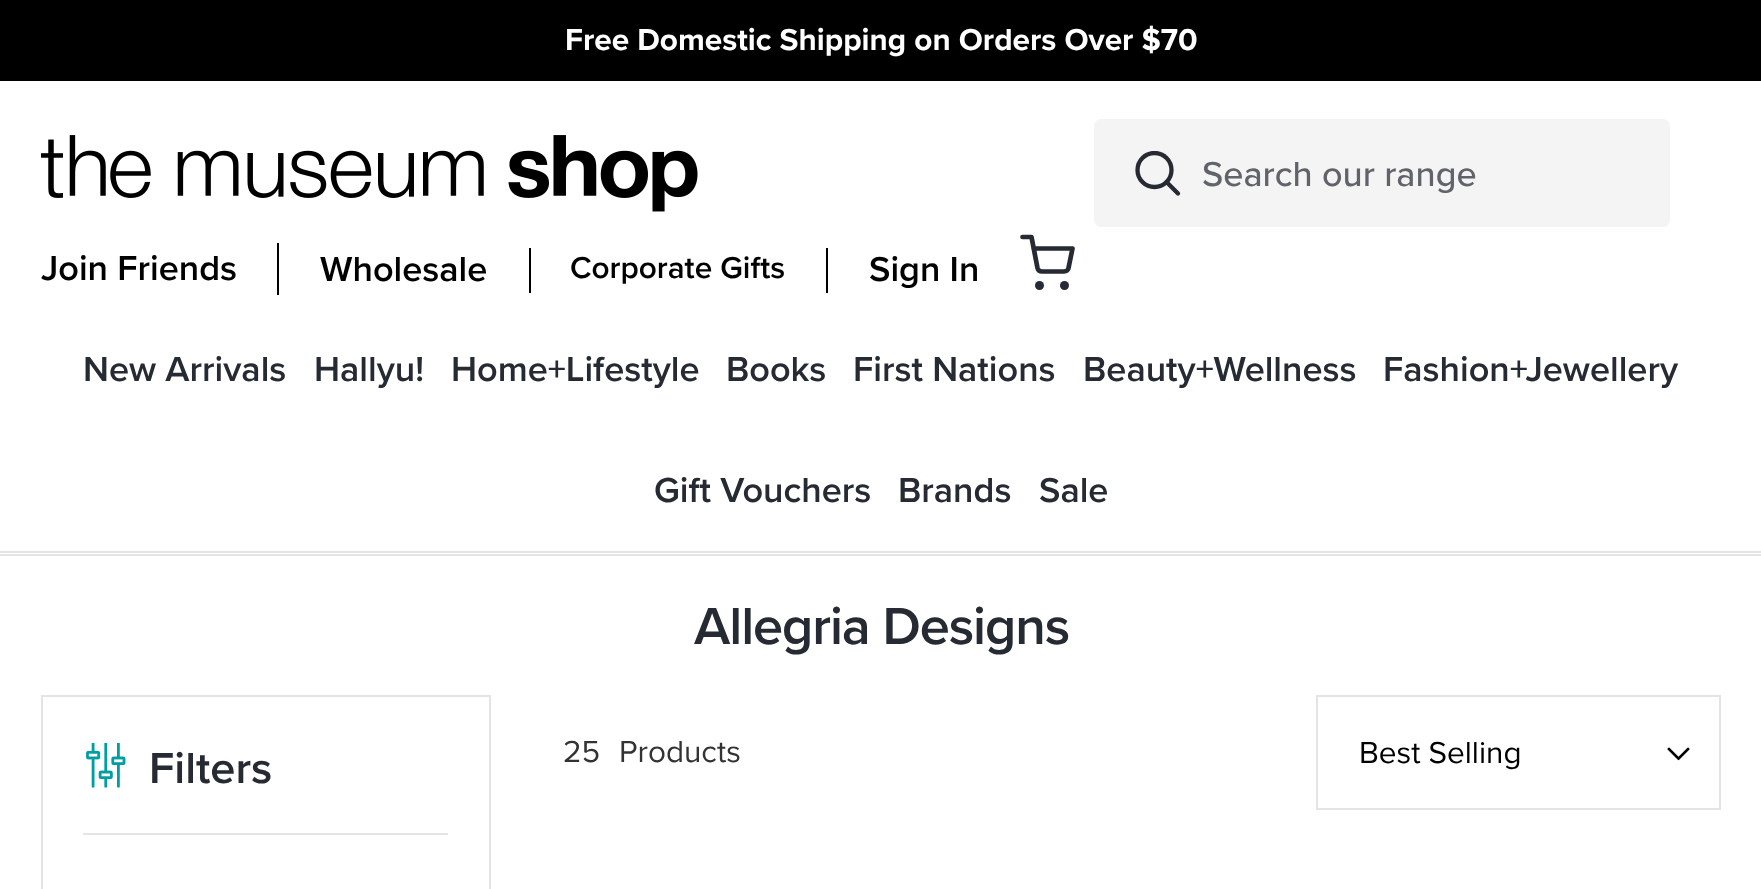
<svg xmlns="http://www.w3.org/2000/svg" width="1761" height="889">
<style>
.a{font:bold 31.5px Proxima Nova;fill:#fff}
.b{font:500 36px Proxima Nova;fill:#606369}
.c{font:600 36px Proxima Nova;fill:#000}
.d{font:600 31.5px Proxima Nova;fill:#000}
.e{font:600 36px Proxima Nova;fill:#262a33}
.f{font:600 54px Proxima Nova;letter-spacing:-1.1px;fill:#262a33}
.g{font:600 45px Proxima Nova;fill:#262a33}
.h{font:31.5px Proxima Nova;fill:#333}
.i{font:31.5px Proxima Nova;fill:#000}
</style>
<defs>
<clipPath id="clip1"><path d="M1134 151h47v45H1134z"/></clipPath>
</defs>
<rect width="100%" height="100%" fill="#fff"/>
<path fill="#e4e4e4" d="M0 551h1761v2H0z"/>
<path fill="#000" d="M0 0h1761v81H0z"/>
<image href="1.png" x="41" y="135" width="657" height="77"/>
<rect fill="#f4f4f4" x="1094" y="119" width="576" height="108" rx="7"/>
<g clip-path="url(#clip1)">
<circle fill="none" stroke="#262a33" stroke-width="4.3" cx="1154.5" cy="170" r="17"/>
</g>
<path fill="none" stroke="#262a33" stroke-width="4.3" stroke-linecap="round" stroke-linejoin="round" d="M1178 193.5l-11.5-11.5"/>
<path fill="#000" d="M277 243h2v52H277z"/>
<path fill="#000" d="M826 248h2v45H826z"/>
<path fill="#000" d="M529 248h2v45H529z"/>
<circle fill="#262a33" cx="1039.5" cy="285.5" r="4.5"/>
<circle fill="#262a33" cx="1064.5" cy="285.5" r="4.5"/>
<path fill="none" stroke="#262a33" stroke-width="4.7" stroke-linecap="round" stroke-linejoin="round" d="M1022.5 237h9l6 31c.5 2 2.5 3.5 4.5 3.5h22c2.5 0 4.5-1.5 4.5-3.5l4-19.5h-39"/>
<path fill="#e4e4e4" d="M0 554h1761v2H0z"/>
<path fill="none" stroke="#e4e4e4" stroke-width="2" d="M42 696h448v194H42z"/>
<path fill="#e4e4e4" d="M83 833h365v2H83z"/>
<image href="2.png" x="86" y="743" width="40" height="45"/>
<path fill="none" stroke="#e4e4e4" stroke-width="2" d="M1317 696h403v113H1317z"/>
<image href="3.png" x="1667" y="747" width="23" height="14"/>
<text class="a" x="565" y="50">Free Domestic Shipping on Orders Over $70</text>
<text class="b" x="1202" y="186">Search our range</text>
<text class="c" x="41" y="280">Join Friends</text>
<text class="c" x="320" y="281">Wholesale</text>
<text class="d" x="570" y="278">Corporate Gifts</text>
<text class="c" x="869" y="281">Sign In</text>
<text class="e" x="83" y="381">New Arrivals</text>
<text class="e" x="314" y="381">Hallyu!</text>
<text class="e" x="451" y="381">Home+Lifestyle</text>
<text class="e" x="726" y="381">Books</text>
<text class="e" x="853" y="381">First Nations</text>
<text class="e" x="1083" y="381">Beauty+Wellness</text>
<text class="e" x="1383" y="381">Fashion+Jewellery</text>
<text class="e" x="654" y="502">Gift Vouchers</text>
<text class="e" x="898" y="502">Brands</text>
<text class="e" x="1039" y="502">Sale</text>
<text class="f" x="694" y="644">Allegria Designs</text>
<text class="g" x="149" y="783">Filters</text>
<text class="h" x="563" y="762">25</text>
<text class="h" x="619" y="762">Products</text>
<text class="i" x="1359" y="763">Best Selling</text>
</svg>
